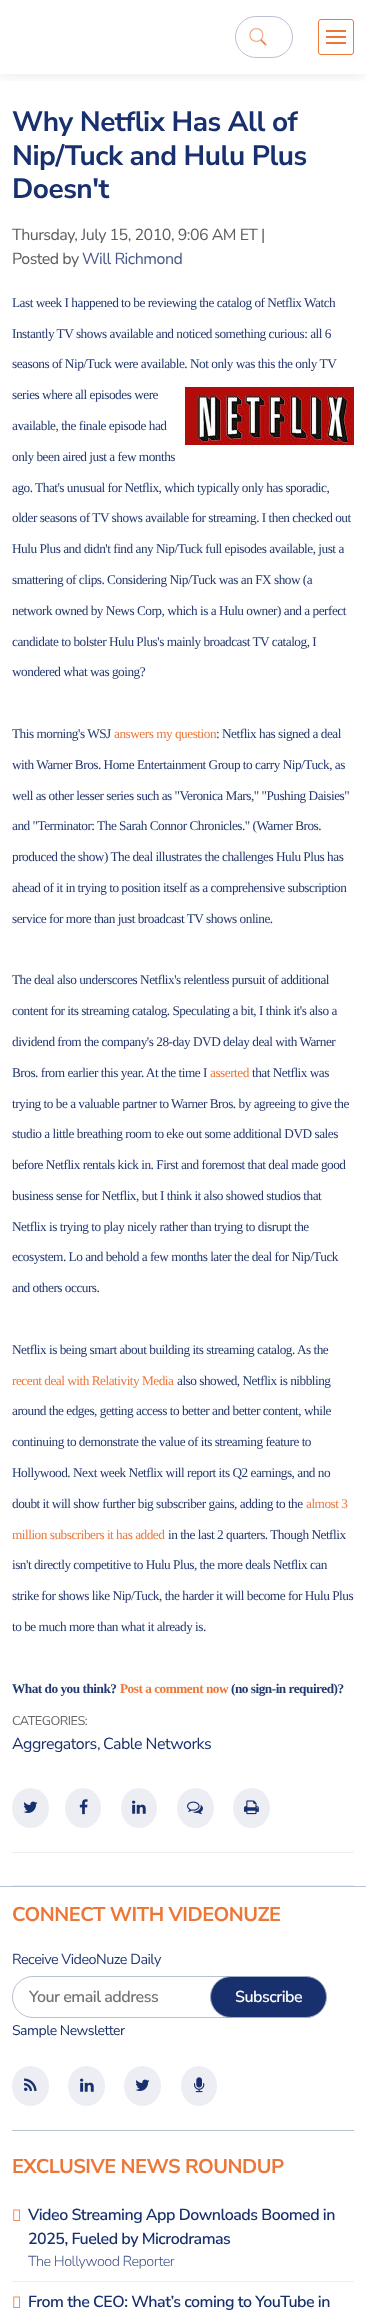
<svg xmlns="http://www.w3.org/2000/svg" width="366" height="2317">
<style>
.a{font:bold 28px Nunito Sans;letter-spacing:-0.5px;fill:#18306e}
.b{font:16px Nunito Sans;letter-spacing:-0.5px;fill:#5c5c5c}
.c{font:16px Nunito Sans;letter-spacing:-0.5px;fill:#46598b}
.d{font:13.3px Liberation Serif;letter-spacing:-0.5px;fill:#243970}
.e{font:13.3px Liberation Serif;letter-spacing:-0.5px;fill:#ed7739}
.f{font:bold 13.3px Liberation Serif;letter-spacing:-0.5px;fill:#243970}
.g{font:bold 13.3px Liberation Serif;letter-spacing:-0.5px;fill:#ed7739}
.h{font:12.75px Nunito Sans;letter-spacing:-0.5px;fill:#666}
.i{font:16px Nunito Sans;letter-spacing:-0.5px;fill:#18306e}
.j{font:16px Nunito Sans;letter-spacing:-0.5px;fill:#243970}
.k{font:bold 20px Nunito Sans;letter-spacing:-0.5px;fill:#ed7739}
.l{font:14.4px Nunito Sans;letter-spacing:-0.5px;fill:#243970}
.m{font:600 16px Nunito Sans;letter-spacing:-0.5px;fill:#757575}
.n{font:600 16px Nunito Sans;letter-spacing:-0.5px;fill:#fff}
.o{font:14px Nunito Sans;letter-spacing:-0.5px;fill:#18306e}
.p{font:600 16px Nunito Sans;letter-spacing:-0.5px;fill:#18306e}
.q{font:300 14.4px Nunito Sans;letter-spacing:-0.5px;fill:#46598b}
</style>
<defs>
<clipPath id="clip1"><path d="M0 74h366v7H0z"/></clipPath>
</defs>
<rect width="100%" height="100%" fill="#fff"/>
<g clip-path="url(#clip1)">
<path fill="#0000001a" filter="blur(8px)" d="M0 0h366v74H0z"/>
</g>
<image href="1.png" x="249" y="27" width="18" height="19"/>
<rect fill="none" stroke="#b9c1d3" x="235.5" y="16.5" width="57" height="41" rx="20.5"/>
<rect fill="none" stroke="#ed7739" x="318.5" y="19.5" width="35" height="35" rx="2.5"/>
<path fill="#ed7739" d="M326 30h20v2H326z"/>
<path fill="#ed7739" d="M326 36h20v2H326z"/>
<path fill="#ed7739" d="M326 42h20v2H326z"/>
<path fill="#eceef4" d="M12 1852h342v1H12z"/>
<image href="2.png" x="185" y="387" width="169" height="58"/>
<ellipse fill="#eceef4" cx="30.5" cy="1808" rx="18.5" ry="20"/>
<image href="3.png" x="23" y="1801" width="15" height="12"/>
<ellipse fill="#eceef4" cx="83" cy="1808" rx="18" ry="20"/>
<image href="4.png" x="79" y="1799" width="9" height="16"/>
<ellipse fill="#eceef4" cx="139" cy="1808" rx="18" ry="20"/>
<image href="5.png" x="132" y="1800" width="14" height="14"/>
<ellipse fill="#eceef4" cx="195.5" cy="1808" rx="18.5" ry="20"/>
<image href="6.png" x="187" y="1801" width="16" height="14"/>
<ellipse fill="#eceef4" cx="251.5" cy="1808" rx="18.5" ry="20"/>
<image href="7.png" x="244" y="1800" width="15" height="15"/>
<path fill="#eceef4" d="M12 1885h342v1H12z"/>
<path fill="#b9c1d3" d="M0 1886h366v1H0z"/>
<rect fill="none" stroke="#b9c1d3" x="12.5" y="1976.5" width="241" height="41" rx="20.5"/>
<rect fill="#18306e" stroke="#9fabc4" x="210.5" y="1976.5" width="116" height="41" rx="20.5"/>
<path fill="#b9c1d3" d="M12 2130h342v1H12z"/>
<ellipse fill="#eceef4" cx="30.5" cy="2086" rx="18.5" ry="20"/>
<image href="8.png" x="24" y="2078" width="13" height="13"/>
<ellipse fill="#eceef4" cx="86.5" cy="2086" rx="18.5" ry="20"/>
<image href="5.png" x="80" y="2078" width="14" height="14"/>
<ellipse fill="#eceef4" cx="142.5" cy="2086" rx="18.5" ry="20"/>
<image href="3.png" x="135" y="2079" width="15" height="12"/>
<ellipse fill="#eceef4" cx="199" cy="2086" rx="18" ry="20"/>
<image href="9.png" x="194" y="2077" width="11" height="16"/>
<path fill="#eceef4" d="M12 2281h342v1H12z"/>
<image href="10.png" x="13" y="2209" width="7" height="12"/>
<image href="10.png" x="13" y="2296" width="7" height="12"/>
<text class="a" x="12" y="131">Why Netflix Has All of</text>
<text class="a" x="12" y="165">Nip/Tuck and Hulu Plus</text>
<text class="a" x="12" y="198">Doesn't</text>
<text class="b" x="12" y="240">Thursday, July 15, 2010, 9:06 AM ET |</text>
<text class="b" x="12" y="264">Posted by</text>
<text class="c" x="82" y="264">Will Richmond</text>
<text class="d" x="12" y="307">Last week I happened to be reviewing the catalog of Netflix Watch</text>
<text class="d" x="12" y="338">Instantly TV shows available and noticed something curious: all 6</text>
<text class="d" x="12" y="368">seasons of Nip/Tuck were available. Not only was this the only TV</text>
<text class="d" x="12" y="399">series where all episodes were</text>
<text class="d" x="12" y="430">available, the finale episode had</text>
<text class="d" x="12" y="461">only been aired just a few months</text>
<text class="d" x="12" y="492">ago. That's unusual for Netflix, which typically only has sporadic,</text>
<text class="d" x="12" y="522">older seasons of TV shows available for streaming. I then checked out</text>
<text class="d" x="12" y="553">Hulu Plus and didn't find any Nip/Tuck full episodes available, just a</text>
<text class="d" x="12" y="584">smattering of clips. Considering Nip/Tuck was an FX show (a</text>
<text class="d" x="12" y="615">network owned by News Corp, which is a Hulu owner) and a perfect</text>
<text class="d" x="12" y="646">candidate to bolster Hulu Plus's mainly broadcast TV catalog, I</text>
<text class="d" x="12" y="676">wondered what was going?</text>
<text class="d" x="12" y="738">This morning's WSJ</text>
<text class="e" x="114" y="738">answers my question</text>
<text class="d" x="216" y="738">: Netflix has signed a deal</text>
<text class="d" x="12" y="769">with Warner Bros. Home Entertainment Group to carry Nip/Tuck, as</text>
<text class="d" x="12" y="800">well as other lesser series such as "Veronica Mars," "Pushing Daisies"</text>
<text class="d" x="12" y="830">and "Terminator: The Sarah Connor Chronicles." (Warner Bros.</text>
<text class="d" x="12" y="861">produced the show) The deal illustrates the challenges Hulu Plus has</text>
<text class="d" x="12" y="892">ahead of it in trying to position itself as a comprehensive subscription</text>
<text class="d" x="12" y="923">service for more than just broadcast TV shows online.</text>
<text class="d" x="12" y="984">The deal also underscores Netflix's relentless pursuit of additional</text>
<text class="d" x="12" y="1015">content for its streaming catalog. Speculating a bit, I think it's also a</text>
<text class="d" x="12" y="1046">dividend from the company's 28-day DVD delay deal with Warner</text>
<text class="d" x="12" y="1077">Bros. from earlier this year. At the time I</text>
<text class="e" x="210" y="1077">asserted</text>
<text class="d" x="252" y="1077">that Netflix was</text>
<text class="d" x="12" y="1108">trying to be a valuable partner to Warner Bros. by agreeing to give the</text>
<text class="d" x="12" y="1138">studio a little breathing room to eke out some additional DVD sales</text>
<text class="d" x="12" y="1169">before Netflix rentals kick in. First and foremost that deal made good</text>
<text class="d" x="12" y="1200">business sense for Netflix, but I think it also showed studios that</text>
<text class="d" x="12" y="1231">Netflix is trying to play nicely rather than trying to disrupt the</text>
<text class="d" x="12" y="1261">ecosystem. Lo and behold a few months later the deal for Nip/Tuck</text>
<text class="d" x="12" y="1292">and others occurs.</text>
<text class="d" x="12" y="1354">Netflix is being smart about building its streaming catalog. As the</text>
<text class="e" x="12" y="1385">recent deal with Relativity Media</text>
<text class="d" x="177" y="1385">also showed, Netflix is nibbling</text>
<text class="d" x="12" y="1415">around the edges, getting access to better and better content, while</text>
<text class="d" x="12" y="1446">continuing to demonstrate the value of its streaming feature to</text>
<text class="d" x="12" y="1477">Hollywood. Next week Netflix will report its Q2 earnings, and no</text>
<text class="d" x="12" y="1508">doubt it will show further big subscriber gains, adding to the</text>
<text class="e" x="306" y="1508">almost 3</text>
<text class="e" x="12" y="1539">million subscribers it has added</text>
<text class="d" x="168" y="1539">in the last 2 quarters. Though Netflix</text>
<text class="d" x="12" y="1569">isn't directly competitive to Hulu Plus, the more deals Netflix can</text>
<text class="d" x="12" y="1600">strike for shows like Nip/Tuck, the harder it will become for Hulu Plus</text>
<text class="d" x="12" y="1631">to be much more than what it already is.</text>
<text class="f" x="12" y="1693">What do you think?</text>
<text class="g" x="120" y="1693">Post a comment now</text>
<text class="f" x="231" y="1693">(no sign-in required)?</text>
<text class="h" x="12" y="1725">CATEGORIES:</text>
<text class="i" x="12" y="1749">Aggregators</text>
<text class="j" x="97" y="1749">,</text>
<text class="i" x="103" y="1749">Cable Networks</text>
<text class="k" x="12" y="1921">CONNECT WITH VIDEONUZE</text>
<text class="l" x="12" y="1964">Receive VideoNuze Daily</text>
<text class="m" x="29" y="2002">Your email address</text>
<text class="n" x="235" y="2002">Subscribe</text>
<text class="o" x="12" y="2035">Sample Newsletter</text>
<text class="k" x="12" y="2173">EXCLUSIVE NEWS ROUNDUP</text>
<text class="p" x="28" y="2220">Video Streaming App Downloads Boomed in</text>
<text class="p" x="28" y="2244">2025, Fueled by Microdramas</text>
<text class="q" x="28" y="2266">The Hollywood Reporter</text>
<text class="p" x="28" y="2307">From the CEO: What’s coming to YouTube in</text>
</svg>
